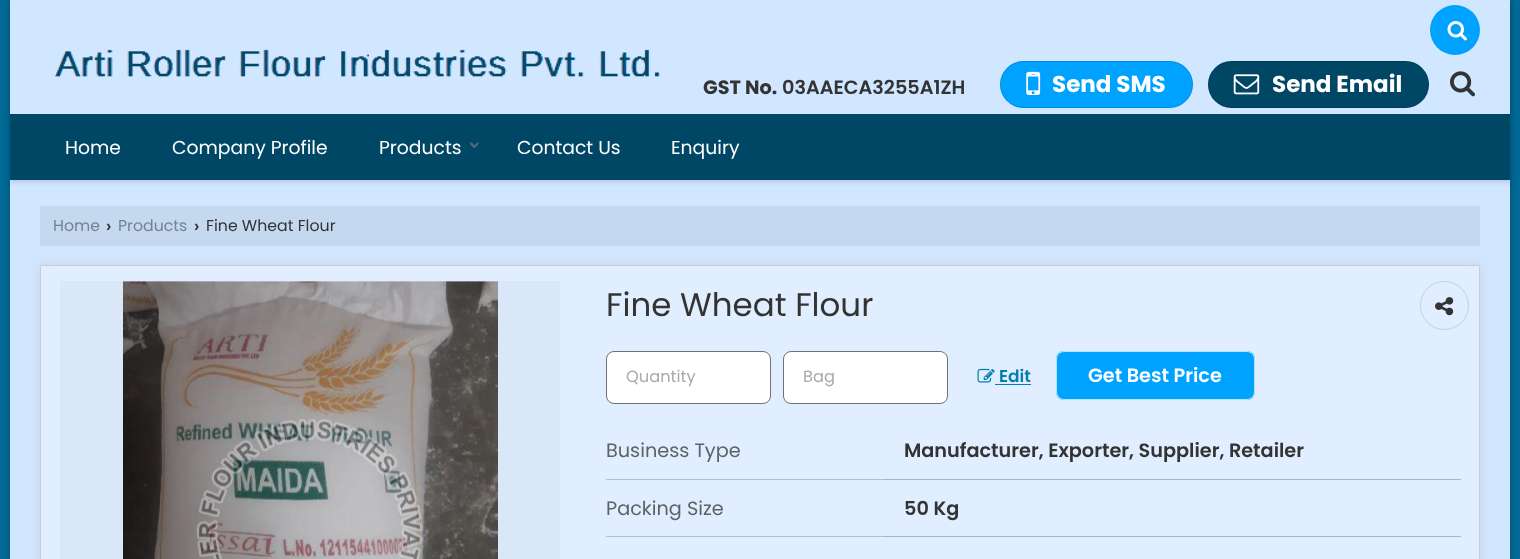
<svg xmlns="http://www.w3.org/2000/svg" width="1520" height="559">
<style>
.a{font:bold 19.25px Poppins;fill:#333}
.b{font:600 19.25px Poppins;fill:#333}
.c{font:bold 23px Poppins;fill:#fff}
.d{font:18.75px Poppins;fill:#fff}
.e{font:15.75px Poppins;fill:#768290}
.f{font:bold 15.75px Liberation Sans;fill:#333}
.g{font:15.75px Poppins;fill:#333}
.h{font:32.5px Poppins;fill:#333}
.i{font:16.25px Poppins;fill:#aaa}
.j{font:600 17px Poppins;fill:#037faf}
.k{font:600 19.25px Poppins;fill:#fff}
.l{font:19.25px Poppins;fill:#5e6266}
</style>
<defs>
<clipPath id="clip1"><path d="M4 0h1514v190h-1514zm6 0h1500v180h-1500z" clip-rule="evenodd"/></clipPath>
</defs>
<rect width="100%" height="100%" fill="#006b99"/>
<path fill="#00000033" filter="blur(5px)" d="M9 -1h1502v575H9z"/>
<path fill="#d1e6ff" d="M10 0h1500v559H10z"/>
<g clip-path="url(#clip1)">
<path fill="#0000001a" filter="blur(2px)" d="M11 3h1500v180H11z"/>
</g>
<image href="1.png" x="54" y="49" width="607" height="28"/>
<circle fill="#00a2ff" cx="1455" cy="30" r="25"/>
<image href="2.png" x="1447" y="21" width="20" height="20"/>
<rect fill="#00a2ff" x="1000" y="61" width="193" height="47" rx="23.5"/>
<rect fill="none" stroke="#00000021" x="1000.5" y="61.5" width="192" height="46" rx="23"/>
<image href="3.png" x="1026" y="71" width="15" height="24"/>
<rect fill="#004766" x="1208" y="61" width="221" height="47" rx="23.5"/>
<rect fill="none" stroke="#00000021" x="1208.5" y="61.5" width="220" height="46" rx="23"/>
<image href="4.png" x="1233" y="74" width="27" height="21"/>
<image href="5.png" x="1450" y="71" width="25" height="26"/>
<path fill="#004766" d="M10 114h1500v66H10z"/>
<image href="6.png" x="469" y="142" width="10" height="7"/>
<path fill="#c4d8f0" d="M40 206h1440v40H40z"/>
<path fill="#ccccccab" filter="blur(6px)" d="M40 265h1440v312H40z"/>
<path fill="#e0eeff" stroke="#c3cfde" d="M40.5 265.5h1439v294H40.5z"/>
<path fill="#d9e7f8" d="M60 281h500v278H60z"/>
<image href="7.png" x="123" y="281" width="375" height="278"/>
<circle fill="none" stroke="#c3cfde" cx="1444.5" cy="305.5" r="24"/>
<image href="8.png" x="1435" y="297" width="19" height="19"/>
<rect fill="#fff" stroke="#717171" x="606.5" y="351.5" width="164" height="52" rx="7.5"/>
<rect fill="#fff" stroke="#717171" x="783.5" y="351.5" width="164" height="52" rx="7.5"/>
<image href="9.png" x="977" y="368" width="18" height="15"/>
<path fill="#037faf" d="M995 384h36v1H995z"/>
<rect fill="#00a2ff" x="1056" y="351" width="199" height="49" rx="8"/>
<rect fill="none" stroke="#ffffffb3" x="1056.5" y="351.5" width="198" height="48" rx="7.5"/>
<path fill="#b4becd" d="M606 479h280v1H606z"/>
<path fill="#acb6c4" d="M885 479h576v1H885z"/>
<path fill="#99a2ae" d="M885 479h1v1H885z"/>
<path fill="#b4becd" d="M606 536h280v1H606z"/>
<path fill="#acb6c4" d="M885 536h576v1H885z"/>
<path fill="#99a2ae" d="M885 536h1v1H885z"/>
<text class="a" x="703" y="94">GST No.</text>
<text class="b" x="782" y="94">03AAECA3255A1ZH</text>
<text class="c" x="1052" y="92">Send SMS</text>
<text class="c" x="1272" y="92">Send Email</text>
<text class="d" x="65" y="154">Home</text>
<text class="d" x="172" y="154">Company Profile</text>
<text class="d" x="379" y="154">Products</text>
<text class="d" x="517" y="154">Contact Us</text>
<text class="d" x="671" y="154">Enquiry</text>
<text class="e" x="53" y="231">Home</text>
<text class="f" x="106" y="231">›</text>
<text class="e" x="118" y="231">Products</text>
<text class="f" x="194" y="231">›</text>
<text class="g" x="206" y="231">Fine Wheat Flour</text>
<text class="h" x="606" y="316">Fine Wheat Flour</text>
<text class="i" x="626" y="382">Quantity</text>
<text class="i" x="803" y="382">Bag</text>
<text class="j" x="999" y="382">Edit</text>
<text class="k" x="1088" y="382">Get Best Price</text>
<text class="l" x="606" y="457">Business Type</text>
<text class="b" x="904" y="457">Manufacturer, Exporter, Supplier, Retailer</text>
<text class="l" x="606" y="515">Packing Size</text>
<text class="b" x="904" y="515">50 Kg</text>
</svg>
